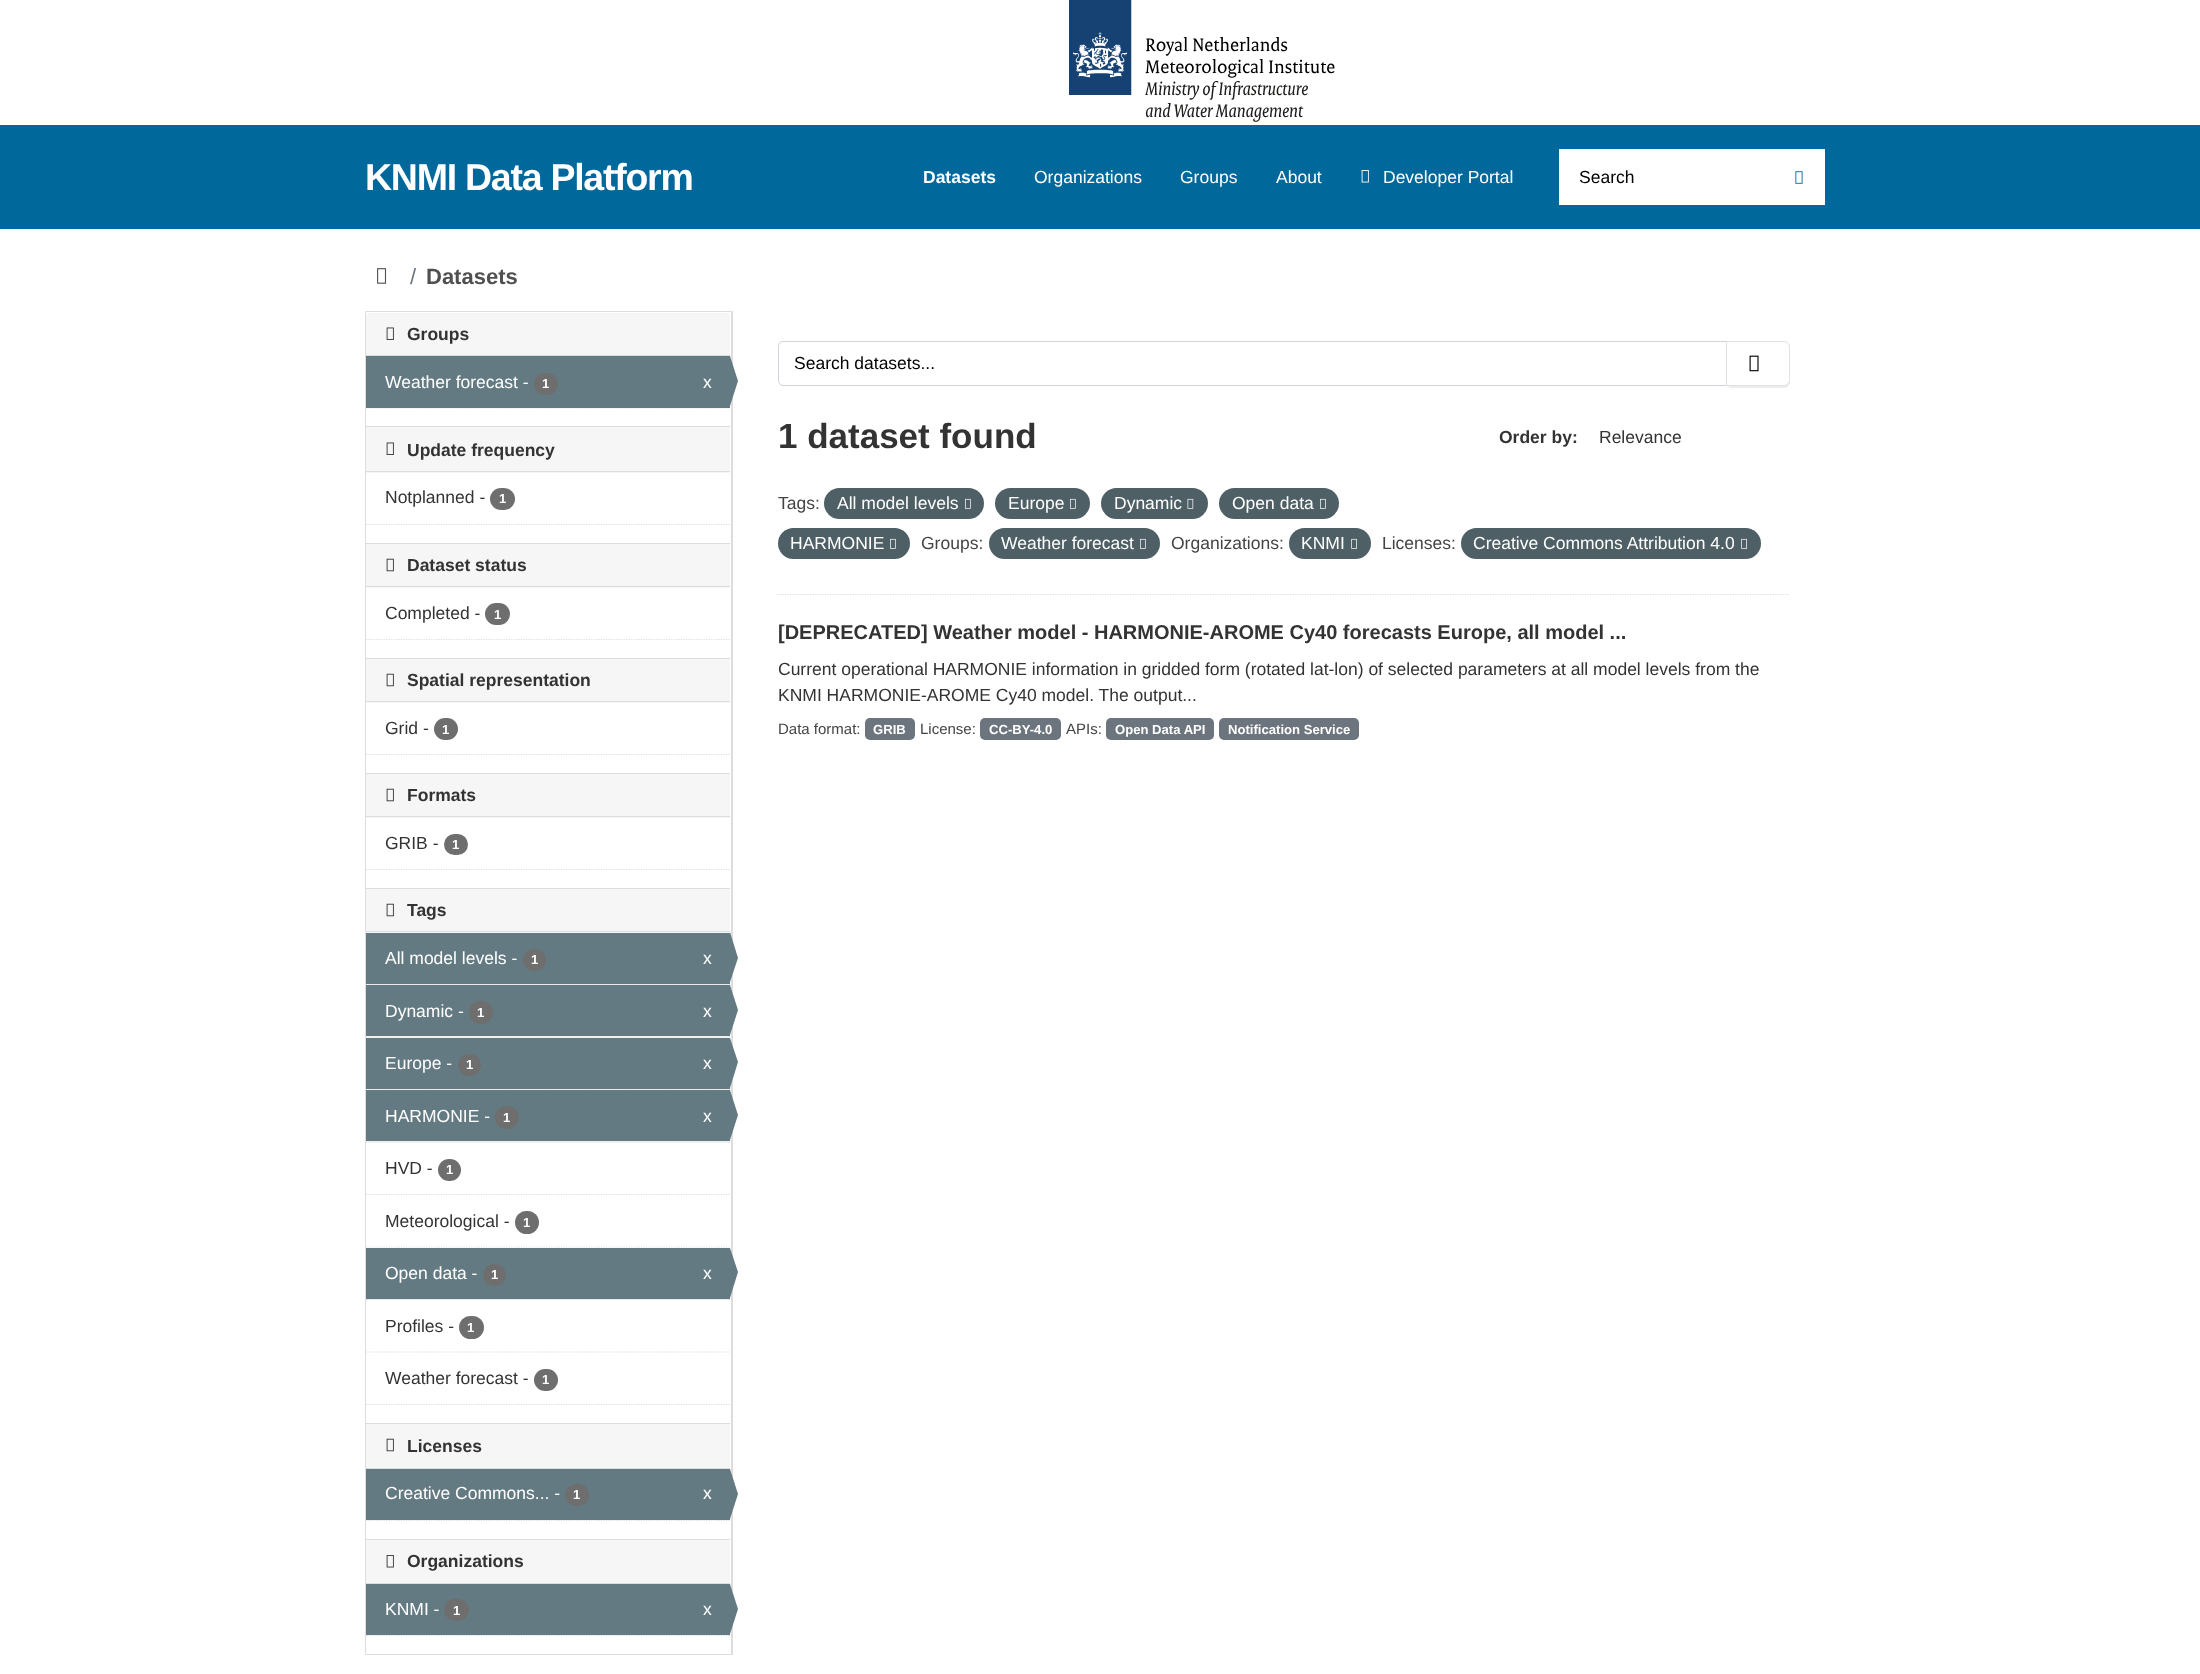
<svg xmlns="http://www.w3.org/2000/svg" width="2200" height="1674">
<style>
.a{font:bold 37.5px Liberation Sans;letter-spacing:-1.25px;fill:#fff}
.b{font:bold 17.5px Liberation Sans;fill:#fff}
.c{font:17.5px Liberation Sans;fill:#fff}
.d{font:17.5px Liberation Sans;fill:#000}
.e{font:22px Liberation Sans;fill:#6c757d}
.f{font:bold 22px Liberation Sans;fill:#505050}
.g{font:bold 17.5px Liberation Sans;fill:#333}
.h{font:bold 13.1px Liberation Sans;fill:#fff}
.i{font:17.5px Liberation Sans;fill:#333}
.j{font:bold 35px Liberation Sans;fill:#333}
.k{font:17.5px Liberation Sans;fill:#444}
.l{font:bold 20px Liberation Sans;fill:#333}
.m{font:15px Liberation Sans;fill:#444}
</style>
<rect width="100%" height="100%" fill="#01689b"/>
<path fill="#fff" d="M0 0h2200v125H0z"/>
<image href="1.png" x="1069" y="0" width="266" height="122"/>
<image href="2.png" x="1361" y="170" width="8" height="13"/>
<path fill="#fff" d="M1559 149h266v56H1559z"/>
<image href="3.png" x="1795" y="171" width="8" height="13"/>
<path fill="#fff" d="M0 229h2200v1445H0z"/>
<image href="4.png" x="377" y="268" width="10" height="16"/>
<path fill="#ddd" d="M731 311h1v1344H731z"/>
<path fill="none" stroke="#ddd" d="M365.5 311.5h367v1343H365.5z"/>
<path fill="#f6f6f6" d="M370 313h360v43h-364v-39c0-2 2-4 4-4z"/>
<path fill="#ddd" d="M366 355h364v1H366z"/>
<image href="5.png" x="386" y="327" width="8" height="13"/>
<path fill="none" stroke="#ddd" stroke-width="1.2" stroke-dasharray="1.25 1.25" d="M366 408h364"/>
<path fill="#647a82" d="M366 356h364v52H366z"/>
<rect fill="#6e6e6e" x="534" y="373" width="24" height="22" rx="11"/>
<path fill="#647a82" d="M730 406v-50l8 25z"/>
<path fill="#f6f6f6" d="M366 427h364v46H366z"/>
<path fill="#ddd" d="M366 426h364v1H366z"/>
<path fill="#ddd" d="M366 471h364v1H366z"/>
<image href="5.png" x="386" y="442" width="8" height="13"/>
<rect fill="#6e6e6e" x="490" y="488" width="25" height="22" rx="11"/>
<path fill="none" stroke="#ddd" stroke-width="1.2" stroke-dasharray="1.25 1.25" d="M366 524.5h364"/>
<path fill="#f6f6f6" d="M366 544h364v44H366z"/>
<path fill="#ddd" d="M366 543h364v1H366z"/>
<path fill="#ddd" d="M366 586h364v1H366z"/>
<image href="6.png" x="386" y="558" width="8" height="14"/>
<rect fill="#6e6e6e" x="485" y="603" width="25" height="22" rx="11"/>
<path fill="none" stroke="#ddd" stroke-width="1.2" stroke-dasharray="1.25 1.25" d="M366 639.5h364"/>
<path fill="#f6f6f6" d="M366 659h364v44H366z"/>
<path fill="#ddd" d="M366 658h364v1H366z"/>
<path fill="#ddd" d="M366 701h364v1H366z"/>
<image href="6.png" x="386" y="673" width="8" height="14"/>
<rect fill="#6e6e6e" x="434" y="718" width="24" height="22" rx="11"/>
<path fill="none" stroke="#ddd" stroke-width="1.2" stroke-dasharray="1.25 1.25" d="M366 754.5h364"/>
<path fill="#f6f6f6" d="M366 774h364v44H366z"/>
<path fill="#ddd" d="M366 773h364v1H366z"/>
<path fill="#ddd" d="M366 816h364v1H366z"/>
<image href="6.png" x="386" y="788" width="8" height="14"/>
<rect fill="#6e6e6e" x="444" y="834" width="24" height="21" rx="10.5"/>
<path fill="none" stroke="#ddd" stroke-width="1.2" stroke-dasharray="1.25 1.25" d="M366 869.5h364"/>
<path fill="#f6f6f6" d="M366 889h364v44H366z"/>
<path fill="#ddd" d="M366 888h364v1H366z"/>
<path fill="#ddd" d="M366 931h364v1H366z"/>
<image href="6.png" x="386" y="903" width="8" height="14"/>
<path fill="#f6f6f6" d="M367 984h363v1H367z"/>
<path fill="none" stroke="#ddd" stroke-width="1.2" stroke-dasharray="1.25 1.25" d="M366 984.5h364"/>
<path fill="#647a82" d="M366 933h364v51H366z"/>
<rect fill="#6e6e6e" x="523" y="949" width="23" height="22" rx="11"/>
<path fill="#647a82" d="M730 982v-50l8 26z"/>
<path fill="#f6f6f6" d="M366 1036h364v2H366z"/>
<path fill="none" stroke="#ddd" stroke-width="1.2" stroke-dasharray="1.25 1.25" d="M366 1037h364"/>
<path fill="#647a82" d="M366 985h364v51H366z"/>
<rect fill="#6e6e6e" x="469" y="1001" width="24" height="23" rx="11.5"/>
<path fill="#647a82" d="M730 1035v-50l8 25z"/>
<path fill="#f6f6f6" d="M367 1089h363v1H367z"/>
<path fill="none" stroke="#ddd" stroke-width="1.2" stroke-dasharray="1.25 1.25" d="M366 1089.5h364"/>
<path fill="#647a82" d="M366 1038h364v51H366z"/>
<rect fill="#6e6e6e" x="458" y="1054" width="23" height="22" rx="11"/>
<path fill="#647a82" d="M730 1088v-50l8 24z"/>
<path fill="#f6f6f6" d="M366 1141h364v2H366z"/>
<path fill="none" stroke="#ddd" stroke-width="1.2" stroke-dasharray="1.25 1.25" d="M366 1142h364"/>
<path fill="#647a82" d="M366 1090h364v51H366z"/>
<rect fill="#6e6e6e" x="495" y="1106" width="24" height="23" rx="11.5"/>
<path fill="#647a82" d="M730 1140v-50l8 25z"/>
<path fill="none" stroke="#ddd" stroke-width="1.2" stroke-dasharray="1.25 1.25" d="M366 1194.5h364"/>
<rect fill="#6e6e6e" x="438" y="1159" width="23" height="22" rx="11"/>
<path fill="none" stroke="#ddd" stroke-width="1.2" stroke-dasharray="1.25 1.25" d="M366 1247h364"/>
<rect fill="#6e6e6e" x="515" y="1211" width="24" height="23" rx="11.5"/>
<path fill="#f6f6f6" d="M367 1299h363v1H367z"/>
<path fill="none" stroke="#ddd" stroke-width="1.2" stroke-dasharray="1.25 1.25" d="M366 1299.5h364"/>
<path fill="#647a82" d="M366 1248h364v51H366z"/>
<rect fill="#6e6e6e" x="483" y="1264" width="23" height="22" rx="11"/>
<path fill="#647a82" d="M730 1298v-50l8 24z"/>
<path fill="none" stroke="#ddd" stroke-width="1.2" stroke-dasharray="1.25 1.25" d="M366 1352h364"/>
<rect fill="#6e6e6e" x="459" y="1316" width="25" height="23" rx="11.5"/>
<rect fill="#6e6e6e" x="534" y="1369" width="24" height="22" rx="11"/>
<path fill="none" stroke="#ddd" stroke-width="1.2" stroke-dasharray="1.25 1.25" d="M366 1404.5h364"/>
<path fill="#f6f6f6" d="M366 1424h364v44H366z"/>
<path fill="#ddd" d="M366 1423h364v1H366z"/>
<path fill="#ddd" d="M366 1468h364v1H366z"/>
<image href="6.png" x="386" y="1438" width="8" height="14"/>
<path fill="none" stroke="#ddd" stroke-width="1.2" stroke-dasharray="1.25 1.25" d="M366 1520.5h364"/>
<path fill="#647a82" d="M366 1469h364v51H366z"/>
<rect fill="#6e6e6e" x="565" y="1484" width="24" height="22" rx="11"/>
<path fill="#647a82" d="M730 1519v-50l8 25z"/>
<path fill="#f6f6f6" d="M366 1540h364v43H366z"/>
<path fill="#ddd" d="M366 1539h364v1H366z"/>
<path fill="#ddd" d="M366 1583h364v1H366z"/>
<image href="7.png" x="386" y="1555" width="8" height="13"/>
<path fill="none" stroke="#ddd" stroke-width="1.2" stroke-dasharray="1.25 1.25" d="M366 1635.5h364"/>
<path fill="#647a82" d="M366 1584h364v51H366z"/>
<rect fill="#6e6e6e" x="444" y="1599" width="25" height="22" rx="11"/>
<path fill="#647a82" d="M730 1634v-50l8 25z"/>
<path fill="none" stroke="#ddd" stroke-width="1.2" stroke-dasharray="1.25 1.25" d="M777.5 594.5h1012.5"/>
<path fill="none" stroke="#ced4da" d="M783 341.5h944.5v44h-944.5c-2.5 0-4.5-2-4.5-4.5v-35c0-2.5 2-4.5 4.5-4.5z"/>
<rect fill="#00000012" filter="blur(0.5px)" x="1726" y="343" width="64" height="45" rx="6"/>
<path fill="#fff" stroke="#dee2e6" d="M1726.5 341.5h57.5c3 0 5.5 2.5 5.5 5.5v33c0 3-2.5 5.5-5.5 5.5h-57.5z"/>
<image href="8.png" x="1749" y="355" width="10" height="17"/>
<rect fill="#4e5f65" x="824" y="488" width="160" height="31" rx="15.5"/>
<image href="9.png" x="965" y="498" width="6" height="11"/>
<rect fill="#4e5f65" x="995" y="488" width="95" height="31" rx="15.5"/>
<image href="9.png" x="1070" y="498" width="6" height="11"/>
<rect fill="#4e5f65" x="1101" y="488" width="107" height="31" rx="15.5"/>
<image href="10.png" x="1187" y="498" width="7" height="11"/>
<rect fill="#4e5f65" x="1219" y="488" width="120" height="31" rx="15.5"/>
<image href="9.png" x="1320" y="498" width="6" height="11"/>
<rect fill="#4e5f65" x="778" y="528" width="132" height="31" rx="15.5"/>
<image href="9.png" x="890" y="538" width="6" height="11"/>
<rect fill="#4e5f65" x="989" y="528" width="171" height="31" rx="15.5"/>
<image href="9.png" x="1140" y="538" width="6" height="11"/>
<rect fill="#4e5f65" x="1289" y="528" width="82" height="31" rx="15.5"/>
<image href="11.png" x="1351" y="538" width="6" height="11"/>
<rect fill="#4e5f65" x="1461" y="528" width="300" height="31" rx="15.5"/>
<image href="11.png" x="1741" y="538" width="6" height="11"/>
<rect fill="#6c757d" x="865" y="718" width="50" height="22" rx="5"/>
<rect fill="#6c757d" x="980" y="718" width="81" height="22" rx="5"/>
<rect fill="#6c757d" x="1106" y="718" width="108" height="22" rx="5"/>
<rect fill="#6c757d" x="1219" y="718" width="140" height="22" rx="5"/>
<text class="a" x="365" y="190">KNMI Data Platform</text>
<text class="b" x="923" y="183">Datasets</text>
<text class="c" x="1034" y="183">Organizations</text>
<text class="c" x="1180" y="183">Groups</text>
<text class="c" x="1276" y="183">About</text>
<text class="c" x="1383" y="183">Developer Portal</text>
<text class="d" x="1579" y="183">Search</text>
<text class="e" x="410" y="284">/</text>
<text class="f" x="426" y="284">Datasets</text>
<text class="g" x="407" y="340">Groups</text>
<text class="c" x="385" y="388">Weather forecast -</text>
<text class="h" x="542" y="388">1</text>
<text class="c" x="703" y="388">x</text>
<text class="g" x="407" y="456">Update frequency</text>
<text class="i" x="385" y="503">Notplanned -</text>
<text class="h" x="499" y="503">1</text>
<text class="g" x="407" y="571">Dataset status</text>
<text class="i" x="385" y="619">Completed -</text>
<text class="h" x="494" y="619">1</text>
<text class="g" x="407" y="686">Spatial representation</text>
<text class="i" x="385" y="734">Grid -</text>
<text class="h" x="442" y="734">1</text>
<text class="g" x="407" y="801">Formats</text>
<text class="i" x="385" y="849">GRIB -</text>
<text class="h" x="452" y="849">1</text>
<text class="g" x="407" y="916">Tags</text>
<text class="c" x="385" y="964">All model levels -</text>
<text class="h" x="531" y="964">1</text>
<text class="c" x="703" y="964">x</text>
<text class="c" x="385" y="1017">Dynamic -</text>
<text class="h" x="477" y="1017">1</text>
<text class="c" x="703" y="1017">x</text>
<text class="c" x="385" y="1069">Europe -</text>
<text class="h" x="466" y="1069">1</text>
<text class="c" x="703" y="1069">x</text>
<text class="c" x="385" y="1122">HARMONIE -</text>
<text class="h" x="503" y="1122">1</text>
<text class="c" x="703" y="1122">x</text>
<text class="i" x="385" y="1174">HVD -</text>
<text class="h" x="446" y="1174">1</text>
<text class="i" x="385" y="1227">Meteorological -</text>
<text class="h" x="523" y="1227">1</text>
<text class="c" x="385" y="1279">Open data -</text>
<text class="h" x="491" y="1279">1</text>
<text class="c" x="703" y="1279">x</text>
<text class="i" x="385" y="1332">Profiles -</text>
<text class="h" x="467" y="1332">1</text>
<text class="i" x="385" y="1384">Weather forecast -</text>
<text class="h" x="542" y="1384">1</text>
<text class="g" x="407" y="1452">Licenses</text>
<text class="c" x="385" y="1499">Creative Commons... -</text>
<text class="h" x="573" y="1499">1</text>
<text class="c" x="703" y="1499">x</text>
<text class="g" x="407" y="1567">Organizations</text>
<text class="c" x="385" y="1615">KNMI -</text>
<text class="h" x="453" y="1615">1</text>
<text class="c" x="703" y="1615">x</text>
<text class="d" x="794" y="369">Search datasets...</text>
<text class="j" x="778" y="448">1 dataset found</text>
<text class="g" x="1499" y="443">Order by:</text>
<text class="i" x="1599" y="443">Relevance</text>
<text class="k" x="778" y="509">Tags:</text>
<text class="c" x="837" y="509">All model levels</text>
<text class="c" x="1008" y="509">Europe</text>
<text class="c" x="1114" y="509">Dynamic</text>
<text class="c" x="1232" y="509">Open data</text>
<text class="c" x="790" y="549">HARMONIE</text>
<text class="k" x="921" y="549">Groups:</text>
<text class="c" x="1001" y="549">Weather forecast</text>
<text class="k" x="1171" y="549">Organizations:</text>
<text class="c" x="1301" y="549">KNMI</text>
<text class="k" x="1382" y="549">Licenses:</text>
<text class="c" x="1473" y="549">Creative Commons Attribution 4.0</text>
<text class="l" x="778" y="639">[DEPRECATED] Weather model - HARMONIE-AROME Cy40 forecasts Europe, all model ...</text>
<text class="i" x="778" y="675">Current operational HARMONIE information in gridded form (rotated lat-lon) of selected parameters at all model levels from the</text>
<text class="i" x="778" y="701">KNMI HARMONIE-AROME Cy40 model. The output...</text>
<text class="m" x="778" y="734">Data format:</text>
<text class="h" x="873" y="734">GRIB</text>
<text class="m" x="920" y="734">License:</text>
<text class="h" x="989" y="734">CC-BY-4.0</text>
<text class="m" x="1066" y="734">APIs:</text>
<text class="h" x="1115" y="734">Open Data API</text>
<text class="h" x="1228" y="734">Notification Service</text>
</svg>
